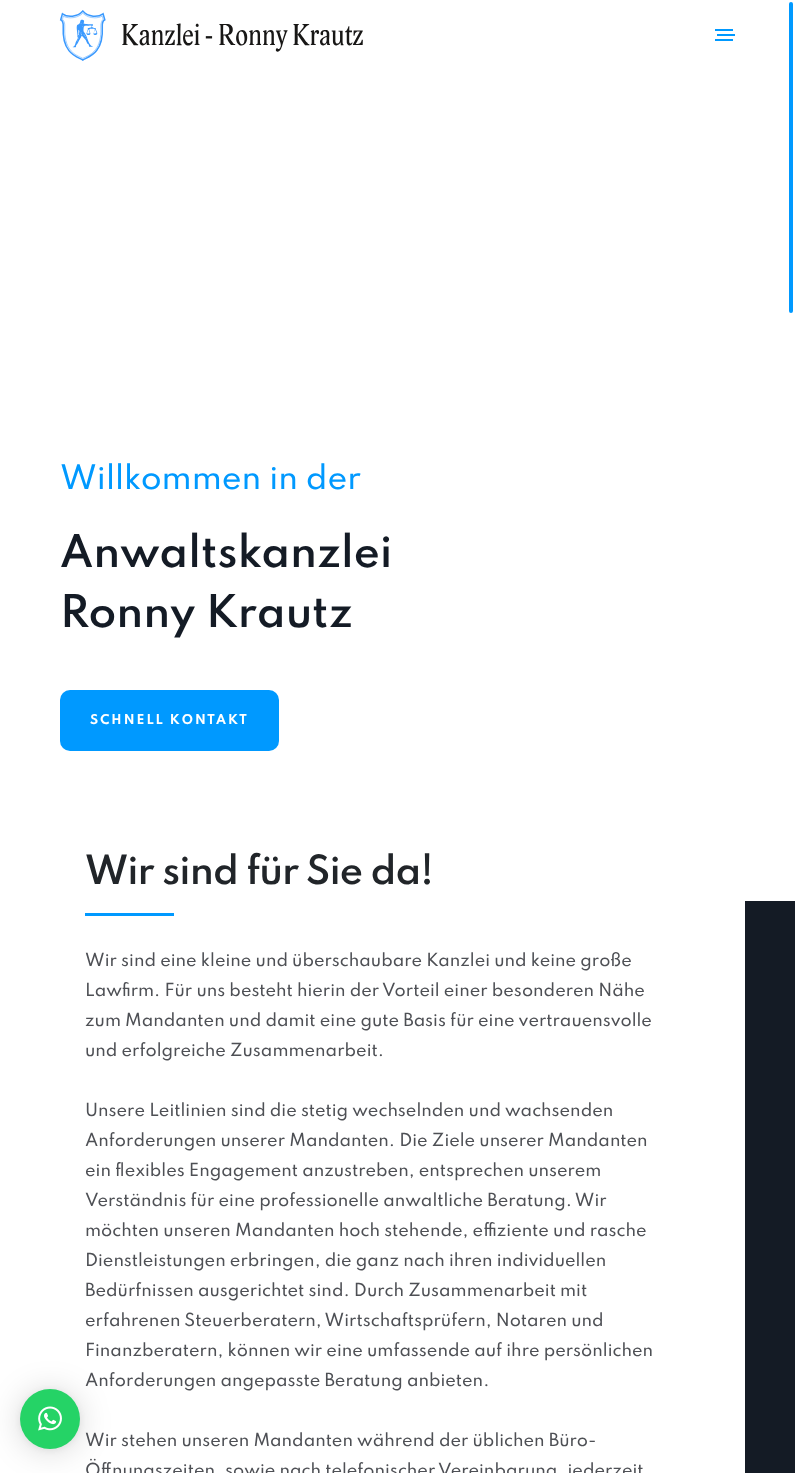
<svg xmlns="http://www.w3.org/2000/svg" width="795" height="1473">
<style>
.a{font:500 30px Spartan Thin;fill:#09f}
.b{font:600 40px Spartan Thin;fill:#141b25}
.c{font:bold 12px Spartan Thin;letter-spacing:2px;fill:#fff}
.d{font:600 35.75px Spartan Thin;letter-spacing:-1px;fill:#212529}
.e{font:500 16px Spartan Thin;fill:#4e5055}
</style>
<rect width="100%" height="100%" fill="#fff"/>
<rect fill="#09f" x="789" y="2" width="4" height="311" rx="2"/>
<image href="1.png" x="59" y="10" width="304" height="51"/>
<path fill="#09f" d="M715 29h18v2H715z"/>
<path fill="#09f" d="M717 34h18v2H717z"/>
<path fill="#09f" d="M715 39h18v2H715z"/>
<rect fill="#09f" x="60" y="690" width="219" height="61" rx="10"/>
<path fill="#141b25" d="M745 901h50v572H745z"/>
<path fill="#09f" d="M85 913h89v3H85z"/>
<rect fill="#00000029" filter="blur(16px)" x="20" y="1391" width="60" height="60" rx="30"/>
<rect fill="#0000000f" filter="blur(3px)" x="20" y="1390" width="60" height="60" rx="30"/>
<circle fill="#25d366" cx="50" cy="1419" r="30"/>
<image href="2.png" x="38" y="1406" width="24" height="25"/>
<text class="a" x="60" y="489">Willkommen in der</text>
<text class="b" x="60" y="567">Anwaltskanzlei</text>
<text class="b" x="60" y="627">Ronny Krautz</text>
<text class="c" x="90" y="724">SCHNELL KONTAKT</text>
<text class="d" x="85" y="884">Wir sind für Sie da!</text>
<text class="e" x="85" y="966">Wir sind eine kleine und überschaubare Kanzlei und keine große</text>
<text class="e" x="85" y="996">Lawfirm. Für uns besteht hierin der Vorteil einer besonderen Nähe</text>
<text class="e" x="85" y="1026">zum Mandanten und damit eine gute Basis für eine vertrauensvolle</text>
<text class="e" x="85" y="1056">und erfolgreiche Zusammenarbeit.</text>
<text class="e" x="85" y="1116">Unsere Leitlinien sind die stetig wechselnden und wachsenden</text>
<text class="e" x="85" y="1146">Anforderungen unserer Mandanten. Die Ziele unserer Mandanten</text>
<text class="e" x="85" y="1176">ein flexibles Engagement anzustreben, entsprechen unserem</text>
<text class="e" x="85" y="1206">Verständnis für eine professionelle anwaltliche Beratung. Wir</text>
<text class="e" x="85" y="1236">möchten unseren Mandanten hoch stehende, effiziente und rasche</text>
<text class="e" x="85" y="1266">Dienstleistungen erbringen, die ganz nach ihren individuellen</text>
<text class="e" x="85" y="1296">Bedürfnissen ausgerichtet sind. Durch Zusammenarbeit mit</text>
<text class="e" x="85" y="1326">erfahrenen Steuerberatern, Wirtschaftsprüfern, Notaren und</text>
<text class="e" x="85" y="1356">Finanzberatern, können wir eine umfassende auf ihre persönlichen</text>
<text class="e" x="85" y="1386">Anforderungen angepasste Beratung anbieten.</text>
<text class="e" x="85" y="1446">Wir stehen unseren Mandanten während der üblichen Büro-</text>
<text class="e" x="85" y="1476">Öffnungszeiten, sowie nach telefonischer Vereinbarung, jederzeit</text>
</svg>
